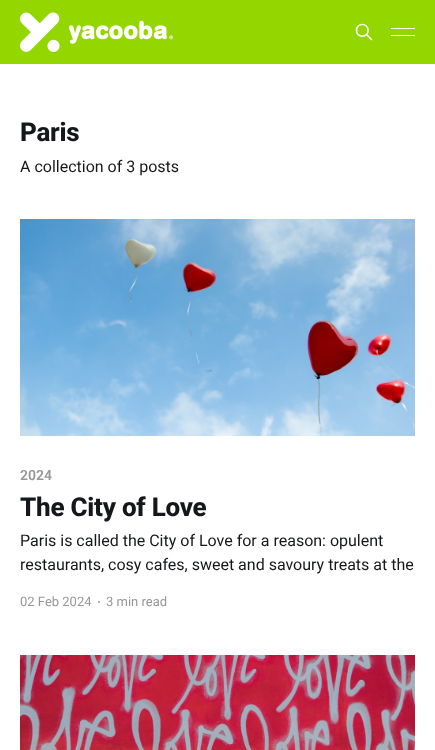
<svg xmlns="http://www.w3.org/2000/svg" width="435" height="750">
<style>
.a{font:800 26px Roboto;letter-spacing:-0.25px;fill:#15171a}
.b{font:16px Roboto;fill:#15171a}
.c{font:600 14px Roboto;fill:#979797}
.d{font:13px Roboto;fill:#979797}
</style>
<rect width="100%" height="100%" fill="#fff"/>
<path fill="#94d600" d="M0 0h435v64H0z"/>
<image href="1.png" x="20" y="12" width="153" height="40"/>
<path fill="none" stroke="#fff" stroke-width="1.7" stroke-linecap="round" stroke-linejoin="round" d="M371.5 39.5l-5-5m1.5-4c0 7.5-11.5 7.5-11.5 0c0-8 11.5-8 11.5 0z"/>
<path fill="#fff" d="M391 28h24v1H391z"/>
<path fill="#fff" d="M391 35h24v1H391z"/>
<image href="2.png" x="20" y="219" width="395" height="217"/>
<circle fill="#979797" cx="99" cy="602" r="1"/>
<image href="3.png" x="20" y="655" width="395" height="95"/>
<text class="a" x="20" y="141">Paris</text>
<text class="b" x="20" y="172">A collection of 3 posts</text>
<text class="c" x="20" y="480">2024</text>
<text class="a" x="20" y="516">The City of Love</text>
<text class="b" x="20" y="546">Paris is called the City of Love for a reason: opulent</text>
<text class="b" x="20" y="570">restaurants, cosy cafes, sweet and savoury treats at the</text>
<text class="d" x="20" y="606">02 Feb 2024</text>
<text class="d" x="106" y="606">3 min read</text>
</svg>
